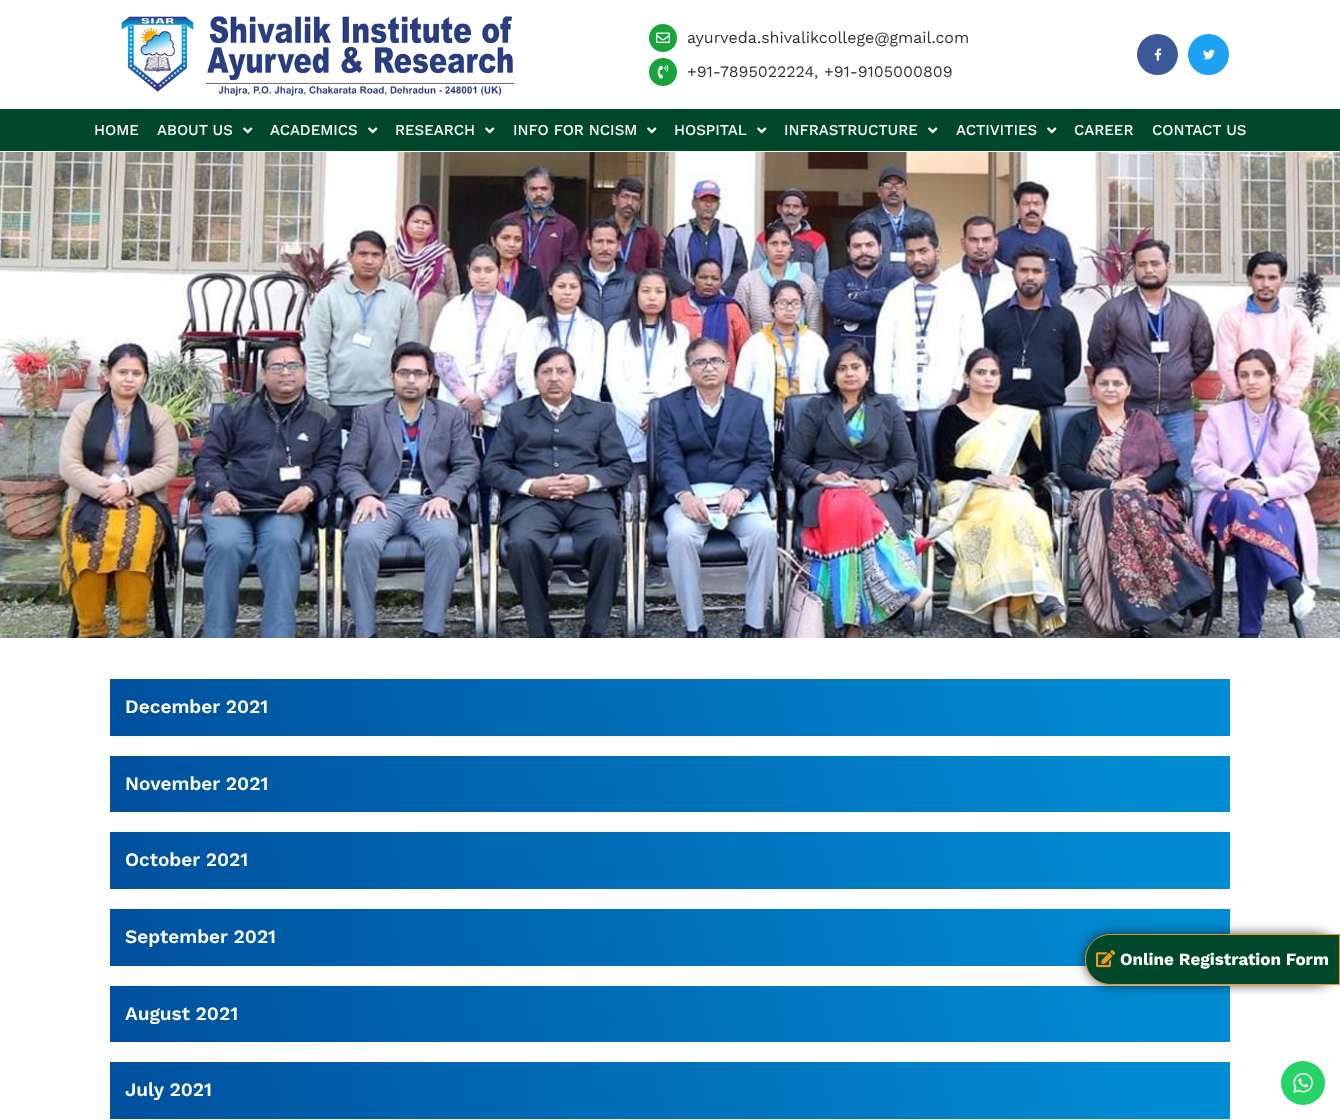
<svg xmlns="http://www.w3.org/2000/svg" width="1340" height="1120">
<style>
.a{font:16px Work Sans;fill:#333}
.b{font:16px Work Sans;fill:#494949}
.c{font:500 15px Work Sans;fill:#fff}
.d{font:600 19px Work Sans;fill:#fff}
.e{font:bold 17px Work Sans;fill:#fff}
</style>
<defs>
<linearGradient id="g1" gradientUnits="userSpaceOnUse" x1="1174" y1="524" x2="166" y2="891"><stop offset="0.07" stop-color="#008cd3"/><stop offset="1" stop-color="#00509d"/></linearGradient>
<linearGradient id="g2" gradientUnits="userSpaceOnUse" x1="1173" y1="601" x2="167" y2="967"><stop offset="0.07" stop-color="#008cd3"/><stop offset="1" stop-color="#00509d"/></linearGradient>
<linearGradient id="g3" gradientUnits="userSpaceOnUse" x1="1174" y1="677" x2="166" y2="1044"><stop offset="0.07" stop-color="#008cd3"/><stop offset="1" stop-color="#00509d"/></linearGradient>
<linearGradient id="g4" gradientUnits="userSpaceOnUse" x1="1174" y1="754" x2="166" y2="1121"><stop offset="0.07" stop-color="#008cd3"/><stop offset="1" stop-color="#00509d"/></linearGradient>
<linearGradient id="g5" gradientUnits="userSpaceOnUse" x1="1173" y1="831" x2="167" y2="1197"><stop offset="0.07" stop-color="#008cd3"/><stop offset="1" stop-color="#00509d"/></linearGradient>
<linearGradient id="g6" gradientUnits="userSpaceOnUse" x1="1174" y1="907" x2="166" y2="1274"><stop offset="0.07" stop-color="#008cd3"/><stop offset="1" stop-color="#00509d"/></linearGradient>
</defs>
<rect width="100%" height="100%" fill="#fff"/>
<image href="1.png" x="119" y="16" width="395" height="80"/>
<circle fill="#17a43b" cx="663" cy="38" r="14"/>
<image href="2.png" x="656" y="32" width="14" height="11"/>
<circle fill="#17a43b" cx="663" cy="72" r="14"/>
<image href="3.png" x="657" y="64" width="12" height="15"/>
<circle fill="#3b5998" cx="1157.5" cy="54.5" r="20.5"/>
<image href="4.png" x="1154" y="48" width="8" height="13"/>
<circle fill="#1da1f2" cx="1208.5" cy="54.5" r="20.5"/>
<image href="5.png" x="1203" y="49" width="12" height="11"/>
<path fill="#00482c" d="M0 109h1340v42H0z"/>
<image href="6.png" x="243" y="127" width="10" height="7"/>
<image href="6.png" x="368" y="127" width="10" height="7"/>
<image href="6.png" x="485" y="127" width="10" height="7"/>
<image href="6.png" x="647" y="127" width="10" height="7"/>
<image href="6.png" x="757" y="127" width="10" height="7"/>
<image href="6.png" x="928" y="127" width="10" height="7"/>
<image href="6.png" x="1047" y="127" width="10" height="7"/>
<image href="7.png" x="0" y="152" width="1340" height="486"/>
<path fill="url(#g1)" d="M110 679h1120v57H110z"/>
<path fill="url(#g2)" d="M110 756h1120v56H110z"/>
<path fill="url(#g3)" d="M110 832h1120v57H110z"/>
<path fill="url(#g4)" d="M110 909h1120v57H110z"/>
<path fill="url(#g5)" d="M110 986h1120v56H110z"/>
<path fill="url(#g6)" d="M110 1062h1120v57H110z"/>
<rect fill="#060606b0" filter="blur(6px)" x="1085" y="934" width="255" height="51" rx="25.5"/>
<path fill="#00482c" stroke="#f49817" d="M1110.5 934.5h229v50h-229c-14 0-25-11-25-25c0-14 11-25 25-25z"/>
<image href="8.png" x="1096" y="950" width="20" height="18"/>
<circle fill="#25d366" cx="1303" cy="1083" r="22"/>
<image href="9.png" x="1293" y="1073" width="20" height="20"/>
<text class="a" x="687" y="43">ayurveda.shivalikcollege@gmail.com</text>
<text class="a" x="687" y="77">+91-7895022224</text>
<text class="b" x="814" y="77">,</text>
<text class="a" x="824" y="77">+91-9105000809</text>
<text class="c" x="94" y="135">HOME</text>
<text class="c" x="157" y="135">ABOUT US</text>
<text class="c" x="270" y="135">ACADEMICS</text>
<text class="c" x="395" y="135">RESEARCH</text>
<text class="c" x="513" y="135">INFO FOR NCISM</text>
<text class="c" x="674" y="135">HOSPITAL</text>
<text class="c" x="784" y="135">INFRASTRUCTURE</text>
<text class="c" x="956" y="135">ACTIVITIES</text>
<text class="c" x="1074" y="135">CAREER</text>
<text class="c" x="1152" y="135">CONTACT US</text>
<text class="d" x="125" y="713">December 2021</text>
<text class="d" x="125" y="790">November 2021</text>
<text class="d" x="125" y="866">October 2021</text>
<text class="d" x="125" y="943">September 2021</text>
<text class="d" x="125" y="1020">August 2021</text>
<text class="d" x="125" y="1096">July 2021</text>
<text class="e" x="1120" y="965">Online Registration Form</text>
</svg>
